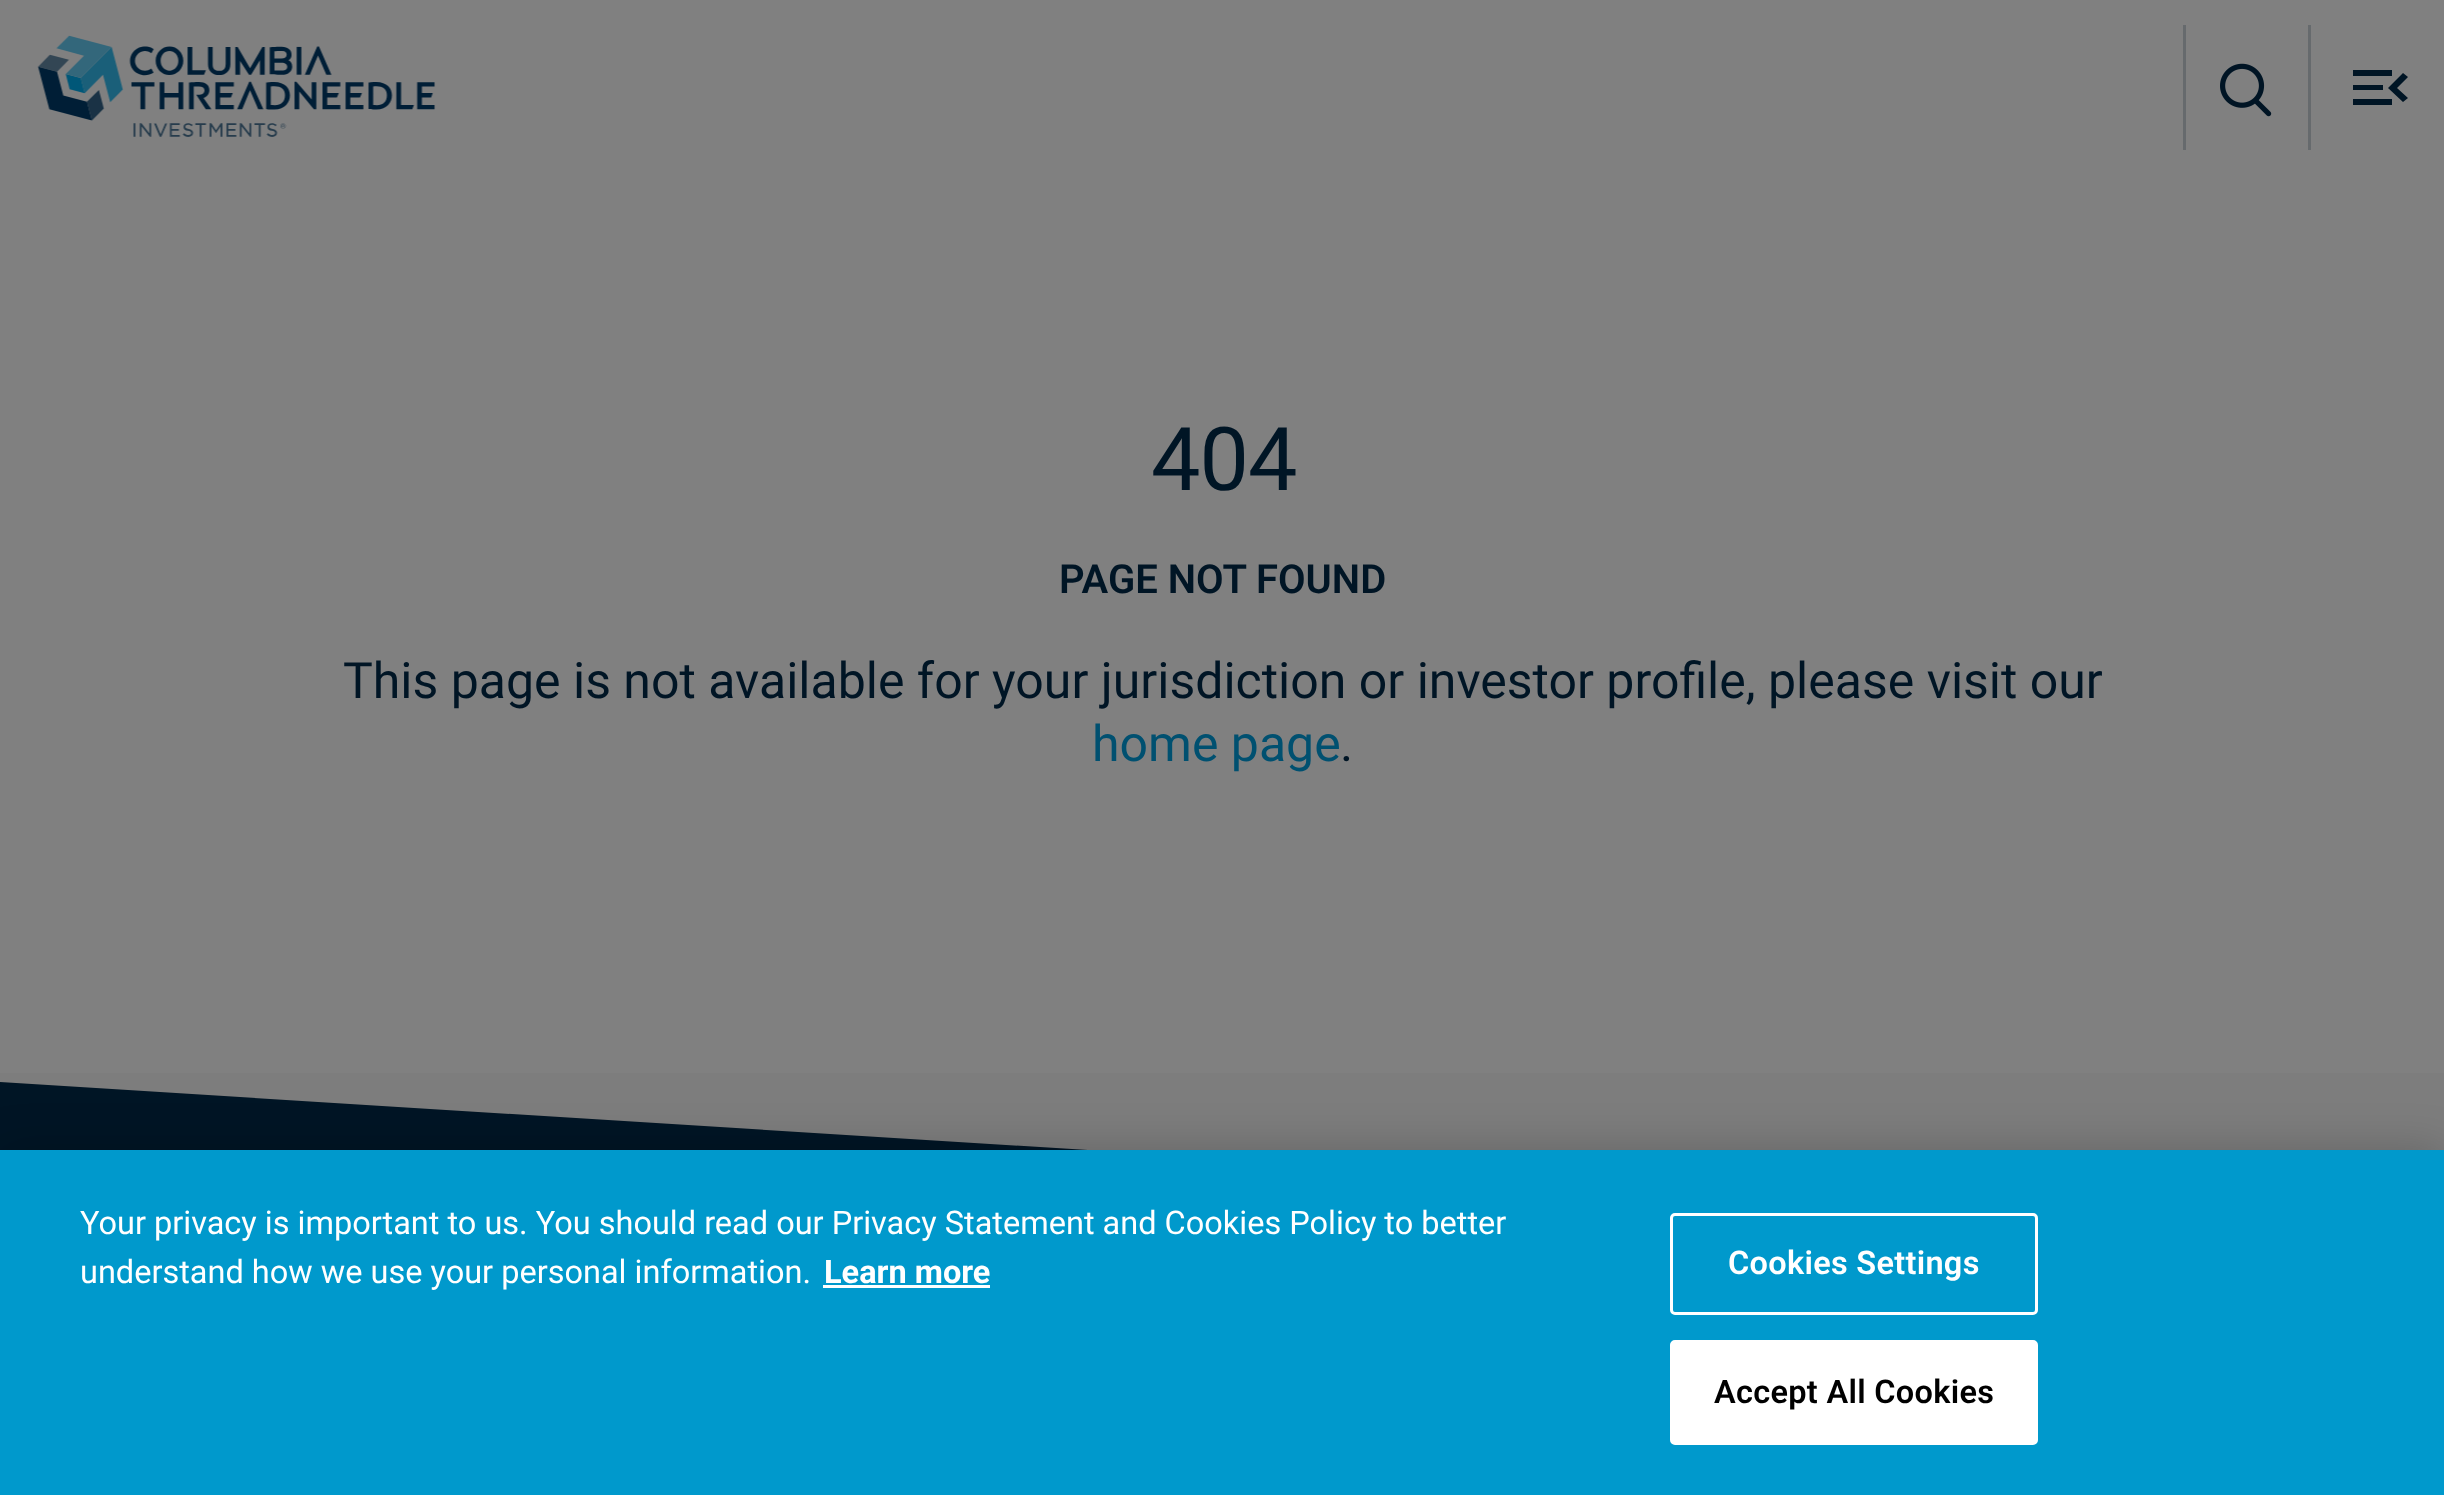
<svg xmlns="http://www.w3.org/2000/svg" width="2444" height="1495">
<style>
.a{font:88px Roboto;letter-spacing:-1px;fill:#001525}
.b{font:600 40px Roboto;fill:#001525}
.c{font:50px Roboto;fill:#001525}
.d{font:50px Roboto;fill:#005070}
.e{font:32.5px Roboto;fill:#fff}
.f{font:bold 32.5px Roboto;fill:#fff}
.g{font:600 32.5px Roboto;letter-spacing:0.3px;fill:#fff}
.h{font:600 32.5px Roboto;letter-spacing:0.3px;fill:#000}
</style>
<defs>
<clipPath id="clip1"><path d="M2353 70h55v35H2353z"/></clipPath>
<clipPath id="clip2"><path d="M0 1073h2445v162H0z"/></clipPath>
</defs>
<rect width="100%" height="100%" fill="#808080"/>
<image href="1.png" x="37" y="35" width="399" height="102"/>
<path fill="#666a6d" d="M2183 25h3v125H2183z"/>
<image href="2.png" x="2220" y="63" width="52" height="54"/>
<path fill="#666a6d" d="M2308 25h3v125H2308z"/>
<g clip-path="url(#clip1)">
<path fill="#001525" d="M2352 105h40v-6h-40zm0-15h31v-5h-31zm0-20v6h40v-6zm56 28l-11-10l11-11l-5-4l-15 15l15 14z"/>
</g>
<path fill="#001525" d="M0 1082h1087v68H0z"/>
<g clip-path="url(#clip2)">
<path fill="#7d7d7d" d="M-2 1082v-10h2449v163z"/>
</g>
<path fill="#00000033" filter="blur(22.5px)" d="M0 1150h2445v345H0z"/>
<path fill="#09c" d="M0 1150h2444v345H0z"/>
<path fill="#fff" d="M823 1285h167v3H823z"/>
<rect fill="none" stroke="#fff" stroke-width="3" x="1671.5" y="1214.5" width="365" height="99" rx="3.5"/>
<rect fill="#fff" stroke="#fff" stroke-width="3" x="1671.5" y="1341.5" width="365" height="102" rx="3.5"/>
<text class="a" x="1151" y="490">404</text>
<text class="b" x="1059" y="593">PAGE NOT FOUND</text>
<text class="c" x="343" y="698">This page is not available for your jurisdiction or investor profile, please visit our</text>
<text class="d" x="1092" y="761">home page</text>
<text class="c" x="1340" y="761">.</text>
<text class="e" x="80" y="1234">Your privacy is important to us. You should read our Privacy Statement and Cookies Policy to better</text>
<text class="e" x="80" y="1283">understand how we use your personal information.</text>
<text class="f" x="824" y="1283">Learn more</text>
<text class="g" x="1728" y="1274">Cookies Settings</text>
<text class="h" x="1714" y="1403">Accept All Cookies</text>
</svg>
